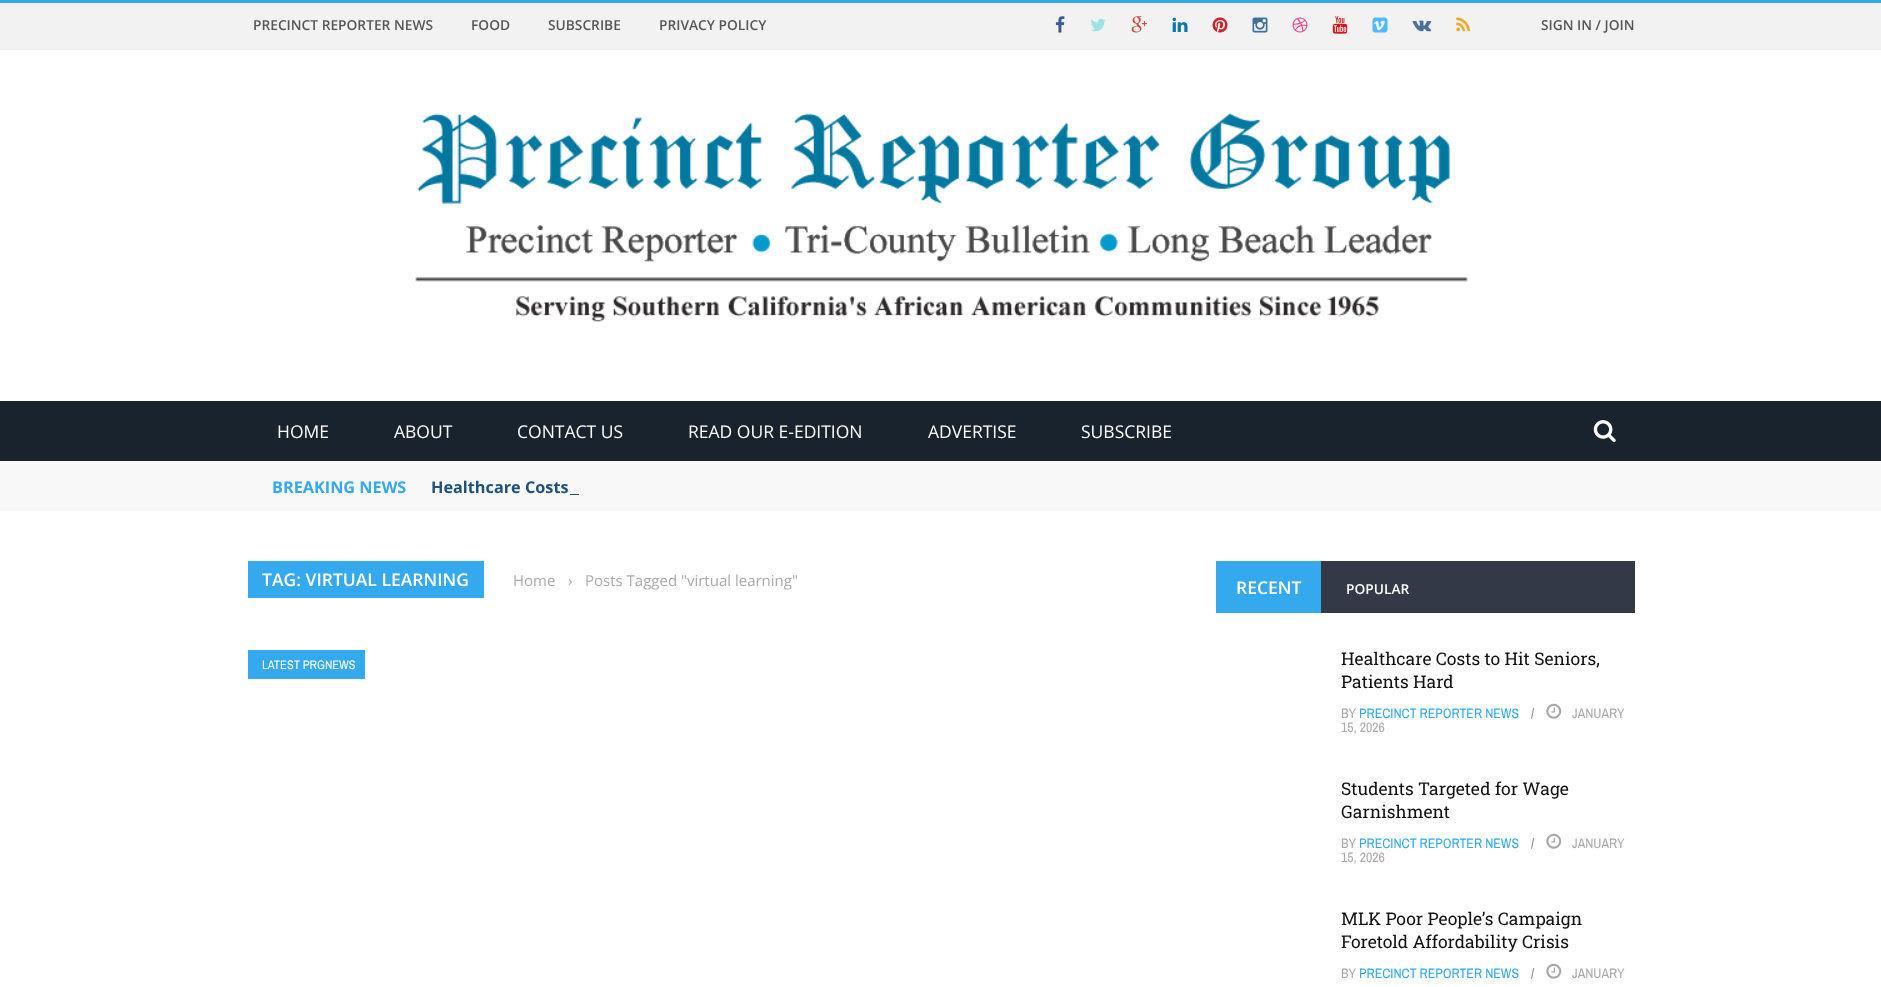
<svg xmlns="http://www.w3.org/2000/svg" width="1881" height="987">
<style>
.a{font:600 13.75px Open Sans;fill:#565656}
.b{font:17.5px Open Sans;fill:#fff}
.c{font:bold 16.25px Open Sans;fill:#34a9ed}
.d{font:bold 16.25px Open Sans;fill:#1f527b}
.e{font:600 17.5px Open Sans;fill:#fff}
.f{font:15px Open Sans;fill:#aaa}
.g{font:12.5px Archivo Narrow;fill:#fff}
.h{font:600 13.75px Open Sans;fill:#fff}
.i{font:17.5px Roboto Slab;fill:#111}
.j{font:13.75px Archivo Narrow;fill:#aaa}
.k{font:13.75px Archivo Narrow;fill:#888}
.l{font:13.75px Archivo Narrow;fill:#34a9ed}
</style>
<rect width="100%" height="100%" fill="#fff"/>
<path fill="#f2f2f2" d="M0 3h1881v46H0z"/>
<path fill="#34a9ed" d="M0 0h1881v3H0z"/>
<path fill="#eee" d="M0 49h1881v1H0z"/>
<image href="1.png" x="1055" y="16" width="10" height="17"/>
<image href="2.png" x="1090" y="18" width="16" height="14"/>
<image href="3.png" x="1131" y="16" width="16" height="17"/>
<image href="4.png" x="1172" y="17" width="16" height="15"/>
<image href="5.png" x="1212" y="17" width="16" height="16"/>
<image href="6.png" x="1252" y="17" width="16" height="16"/>
<image href="7.png" x="1292" y="17" width="16" height="16"/>
<image href="8.png" x="1332" y="16" width="16" height="18"/>
<image href="9.png" x="1372" y="17" width="16" height="16"/>
<image href="10.png" x="1412" y="20" width="20" height="12"/>
<image href="11.png" x="1456" y="17" width="14" height="15"/>
<image href="12.png" x="415" y="113" width="1053" height="209"/>
<path fill="#19232d" d="M0 401h1881v60H0z"/>
<image href="13.png" x="1593" y="420" width="23" height="23"/>
<path fill="#f8f8f8" d="M0 461h1881v50H0z"/>
<path fill="#1f527b" d="M570 494h9v1H570z"/>
<path fill="#34a9ed" d="M248 561h236v37H248z"/>
<path fill="#34a9ed" d="M248 650h117v29H248z"/>
<path fill="#333946" d="M1321 561h314v52H1321z"/>
<path fill="#34a9ed" d="M1216 561h105v52H1216z"/>
<image href="14.png" x="1546" y="703" width="16" height="16"/>
<image href="14.png" x="1546" y="833" width="16" height="16"/>
<image href="14.png" x="1546" y="963" width="16" height="16"/>
<text class="a" x="253" y="30">PRECINCT REPORTER NEWS</text>
<text class="a" x="471" y="30">FOOD</text>
<text class="a" x="548" y="30">SUBSCRIBE</text>
<text class="a" x="659" y="30">PRIVACY POLICY</text>
<text class="a" x="1541" y="30">SIGN IN / JOIN</text>
<text class="b" x="277" y="438">HOME</text>
<text class="b" x="394" y="438">ABOUT</text>
<text class="b" x="517" y="438">CONTACT US</text>
<text class="b" x="688" y="438">READ OUR E-EDITION</text>
<text class="b" x="928" y="438">ADVERTISE</text>
<text class="b" x="1081" y="438">SUBSCRIBE</text>
<text class="c" x="272" y="493">BREAKING NEWS</text>
<text class="d" x="431" y="493">Healthcare Costs</text>
<text class="e" x="262" y="586">TAG: VIRTUAL LEARNING</text>
<text class="f" x="513" y="586">Home</text>
<text class="f" x="568" y="586">›</text>
<text class="f" x="585" y="586">Posts Tagged "virtual learning"</text>
<text class="g" x="262" y="669">LATEST PRGNEWS</text>
<text class="e" x="1236" y="594">RECENT</text>
<text class="h" x="1346" y="594">POPULAR</text>
<text class="i" x="1341" y="665">Healthcare Costs to Hit Seniors,</text>
<text class="i" x="1341" y="688">Patients Hard</text>
<text class="j" x="1341" y="718">BY</text>
<text class="k" x="1531" y="718">/</text>
<text class="j" x="1572" y="718">JANUARY</text>
<text class="j" x="1341" y="732">15, 2026</text>
<text class="l" x="1359" y="718">PRECINCT REPORTER NEWS</text>
<text class="i" x="1341" y="795">Students Targeted for Wage</text>
<text class="i" x="1341" y="818">Garnishment</text>
<text class="j" x="1341" y="848">BY</text>
<text class="k" x="1531" y="848">/</text>
<text class="j" x="1572" y="848">JANUARY</text>
<text class="j" x="1341" y="862">15, 2026</text>
<text class="l" x="1359" y="848">PRECINCT REPORTER NEWS</text>
<text class="i" x="1341" y="925">MLK Poor People’s Campaign</text>
<text class="i" x="1341" y="948">Foretold Affordability Crisis</text>
<text class="j" x="1341" y="978">BY</text>
<text class="l" x="1359" y="978">PRECINCT REPORTER NEWS</text>
<text class="k" x="1531" y="978">/</text>
<text class="j" x="1572" y="978">JANUARY</text>
</svg>
